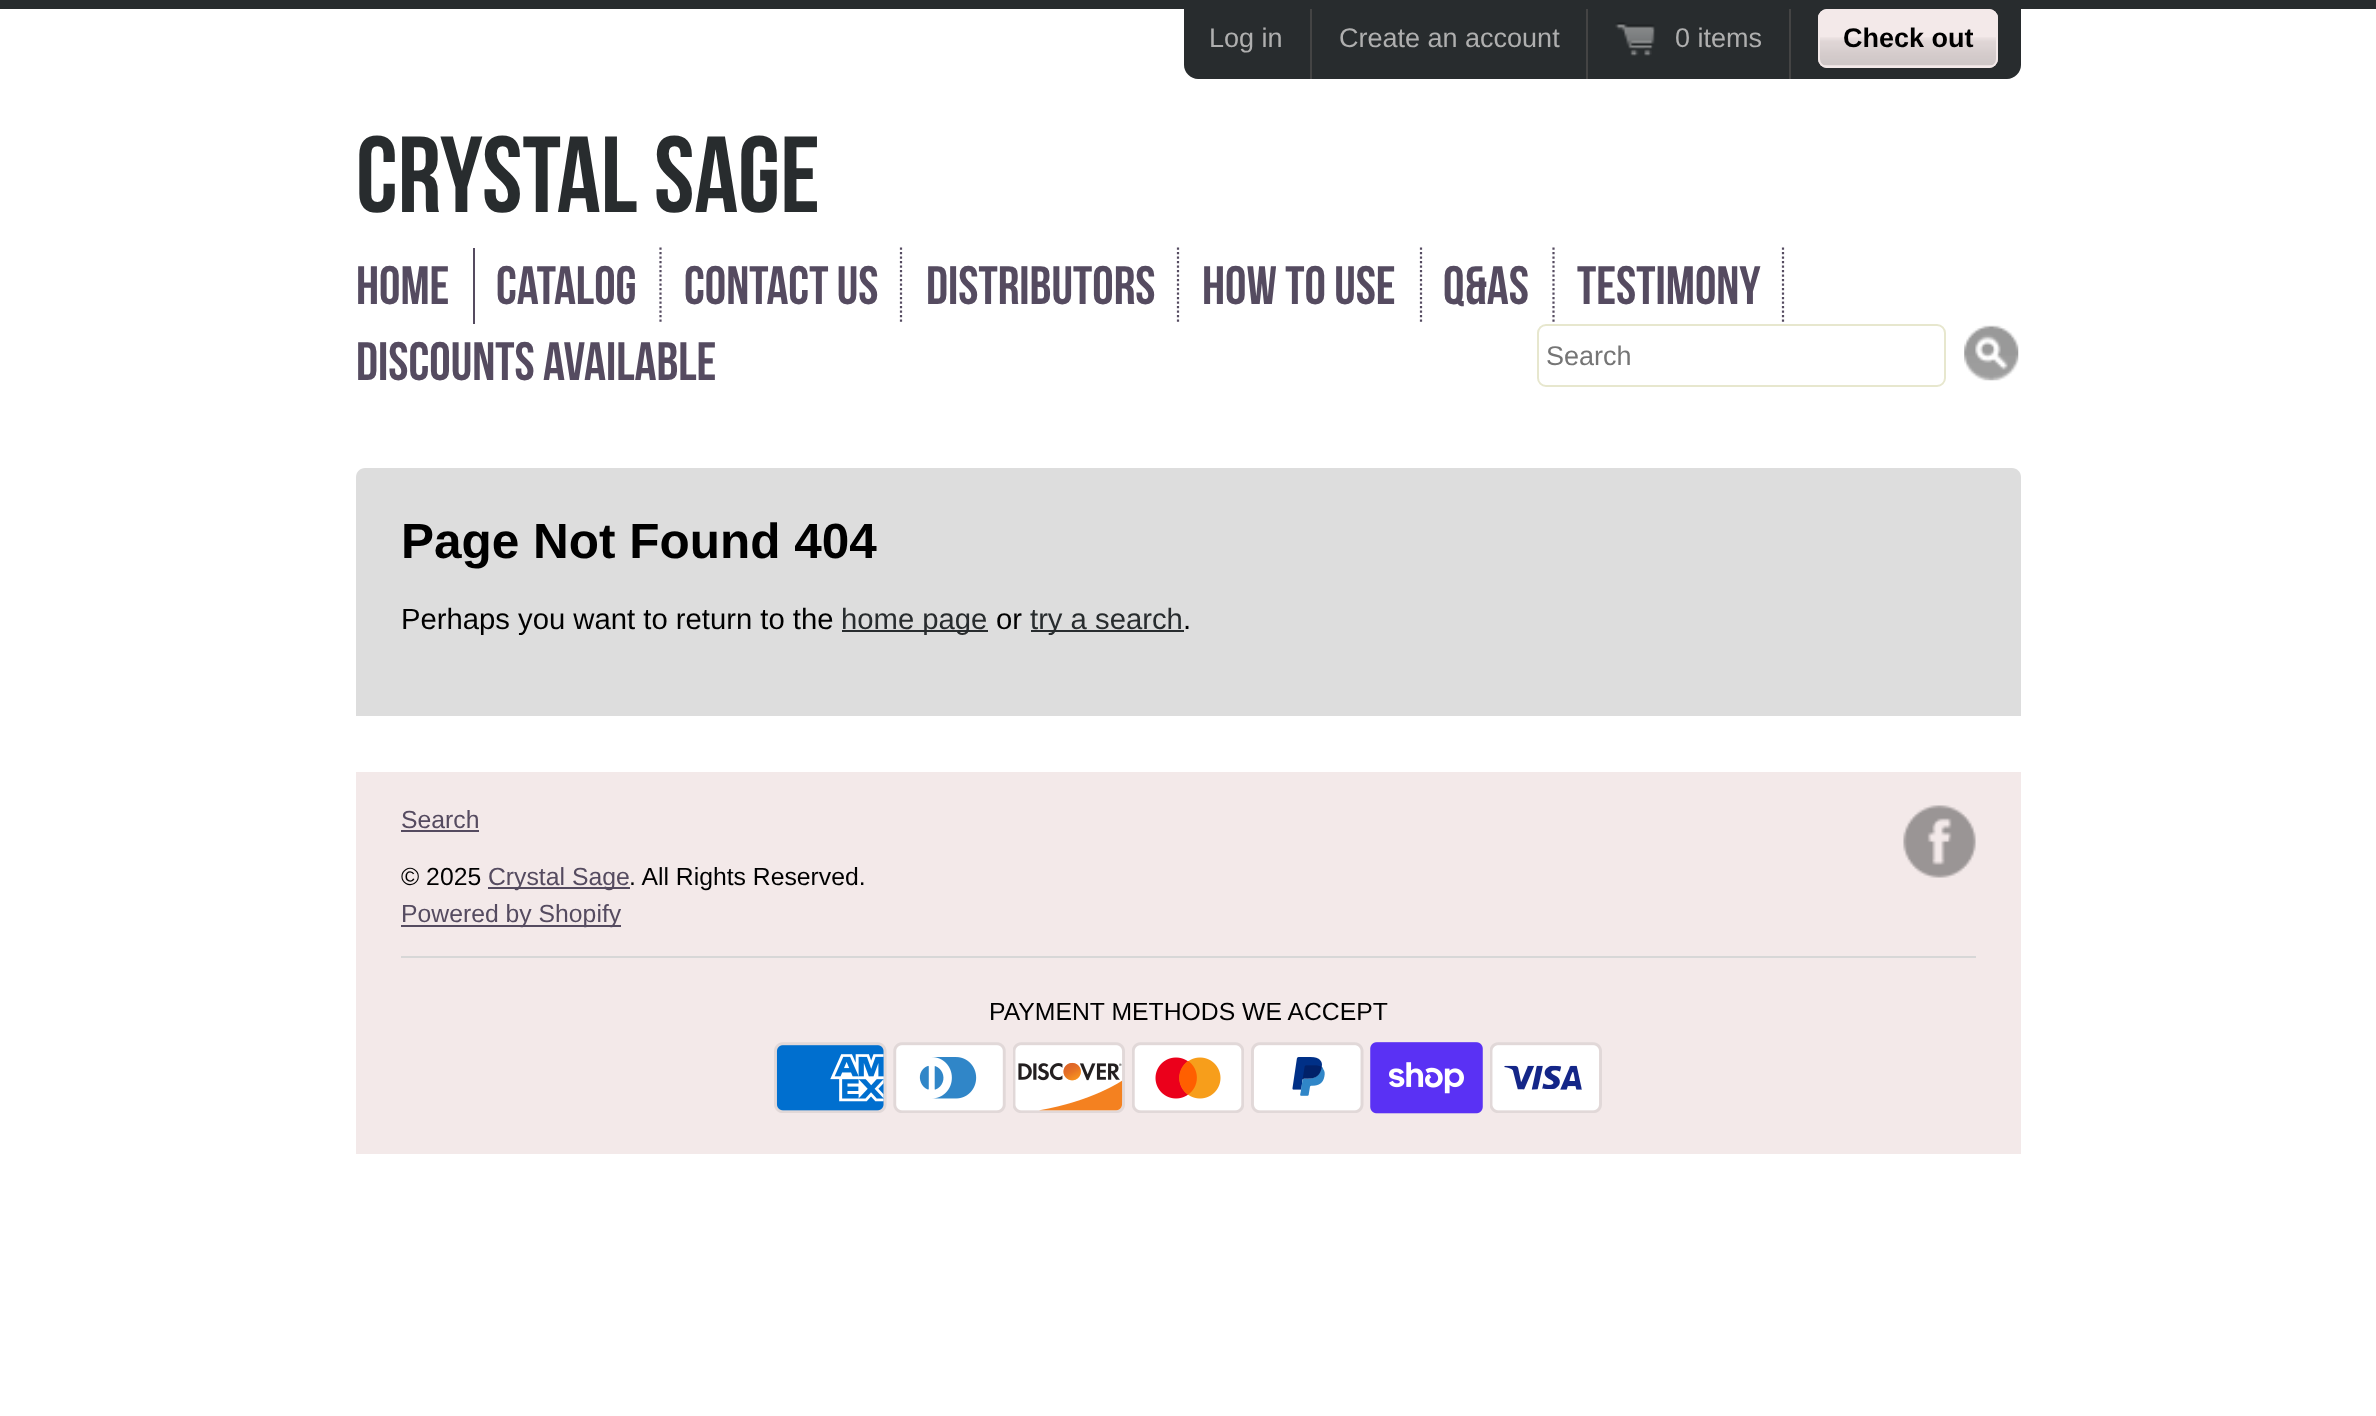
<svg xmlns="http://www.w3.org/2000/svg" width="2376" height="1416">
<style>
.a{font:27px Liberation Sans;fill:#afafaf}
.b{font:bold 27px Liberation Sans;fill:#000}
.c{font:108px Bebas Neue;fill:#282c2e}
.d{font:54px Bebas Neue;fill:#554b60}
.e{font:27px Liberation Sans;fill:#757575}
.f{font:bold 49.5px Liberation Sans;fill:#000}
.g{font:29.25px Liberation Sans;fill:#000}
.h{font:29.25px Liberation Sans;fill:#282c2e}
.i{font:24.75px Liberation Sans;fill:#554b60}
.j{font:24.75px Liberation Sans;fill:#000}
</style>
<rect width="100%" height="100%" fill="#fff"/>
<path fill="#282c2e" d="M0 0h2376v9H0z"/>
<path fill="#282c2e" d="M1184 9h837v56c0 7.5-6.5 14-14 14h-809c-7.5 0-14-6.5-14-14z"/>
<path fill="#444" d="M1310 9h2v70H1310z"/>
<path fill="#444" d="M1586 9h2v70H1586z"/>
<path fill="#444" d="M1789 9h2v70H1789z"/>
<image href="1.png" x="1615" y="22" width="40" height="34"/>
<rect fill="#f3e9e9" x="1818" y="9" width="180" height="59" rx="9"/>
<image href="2.png" x="1818" y="37" width="180" height="29"/>
<rect fill="none" stroke="#f3e9e9" stroke-width="2" x="1819" y="10" width="178" height="57" rx="8"/>
<path fill="#554b60" d="M473 248h2v76H473z"/>
<path fill="none" stroke="#554b60" stroke-width="2.2" stroke-dasharray="2.25 2.25" d="M660.5 247.5v76.5"/>
<path fill="none" stroke="#554b60" stroke-width="2.2" stroke-dasharray="2.25 2.25" d="M901 247.5v76.5"/>
<path fill="none" stroke="#554b60" stroke-width="2.2" stroke-dasharray="2.25 2.25" d="M1178 247.5v76.5"/>
<path fill="none" stroke="#554b60" stroke-width="2.2" stroke-dasharray="2.25 2.25" d="M1421 247.5v76.5"/>
<path fill="none" stroke="#554b60" stroke-width="2.2" stroke-dasharray="2.25 2.25" d="M1553.5 247.5v76.5"/>
<path fill="none" stroke="#554b60" stroke-width="2.2" stroke-dasharray="2.25 2.25" d="M1783 247.5v76.5"/>
<rect fill="none" stroke="#e7e7ce" stroke-width="2" x="1538" y="325" width="407" height="61" rx="8"/>
<image href="3.png" x="1964" y="325" width="55" height="56"/>
<path fill="#ddd" d="M365 468h1647c5 0 9 4 9 9v239h-1665v-239c0-5 4-9 9-9z"/>
<path fill="#282c2e" d="M842 630h146v2H842z"/>
<path fill="#282c2e" d="M1031 630h153v2H1031z"/>
<path fill="#f3e9e9" d="M356 772h1665v382H356z"/>
<path fill="#554b60" d="M401 830h78v2H401z"/>
<path fill="#554b60" d="M488 887h142v2H488z"/>
<path fill="#554b60" d="M401 925h220v2H401z"/>
<image href="4.png" x="1903" y="805" width="73" height="73"/>
<path fill="#d7d7d7" d="M401 956h1575v2H401z"/>
<image href="5.png" x="774" y="1042" width="113" height="71"/>
<image href="6.png" x="893" y="1042" width="113" height="71"/>
<image href="7.png" x="1013" y="1042" width="112" height="71"/>
<image href="8.png" x="1132" y="1042" width="112" height="71"/>
<image href="9.png" x="1251" y="1042" width="113" height="71"/>
<image href="10.png" x="1370" y="1042" width="113" height="72"/>
<image href="11.png" x="1490" y="1042" width="112" height="71"/>
<text class="a" x="1209" y="47">Log in</text>
<text class="a" x="1339" y="47">Create an account</text>
<text class="a" x="1675" y="47">0 items</text>
<text class="b" x="1843" y="47">Check out</text>
<text class="c" x="356" y="212">Crystal Sage</text>
<text class="d" x="356" y="304">Home</text>
<text class="d" x="496" y="304">Catalog</text>
<text class="d" x="684" y="304">Contact Us</text>
<text class="d" x="926" y="304">Distributors</text>
<text class="d" x="1202" y="304">How to Use</text>
<text class="d" x="1443" y="304">Q&amp;As</text>
<text class="d" x="1577" y="304">Testimony</text>
<text class="d" x="356" y="380">Discounts Available</text>
<text class="e" x="1546" y="365">Search</text>
<text class="f" x="401" y="558">Page Not Found 404</text>
<text class="g" x="401" y="629">Perhaps you want to return to the</text>
<text class="h" x="841" y="629">home page</text>
<text class="g" x="996" y="629">or</text>
<text class="h" x="1030" y="629">try a search</text>
<text class="g" x="1183" y="629">.</text>
<text class="i" x="401" y="828">Search</text>
<text class="j" x="401" y="885">© 2025</text>
<text class="i" x="488" y="885">Crystal Sage</text>
<text class="j" x="629" y="885">. All Rights Reserved.</text>
<text class="i" x="401" y="922">Powered by Shopify</text>
<text class="j" x="989" y="1020">PAYMENT METHODS WE ACCEPT</text>
</svg>
